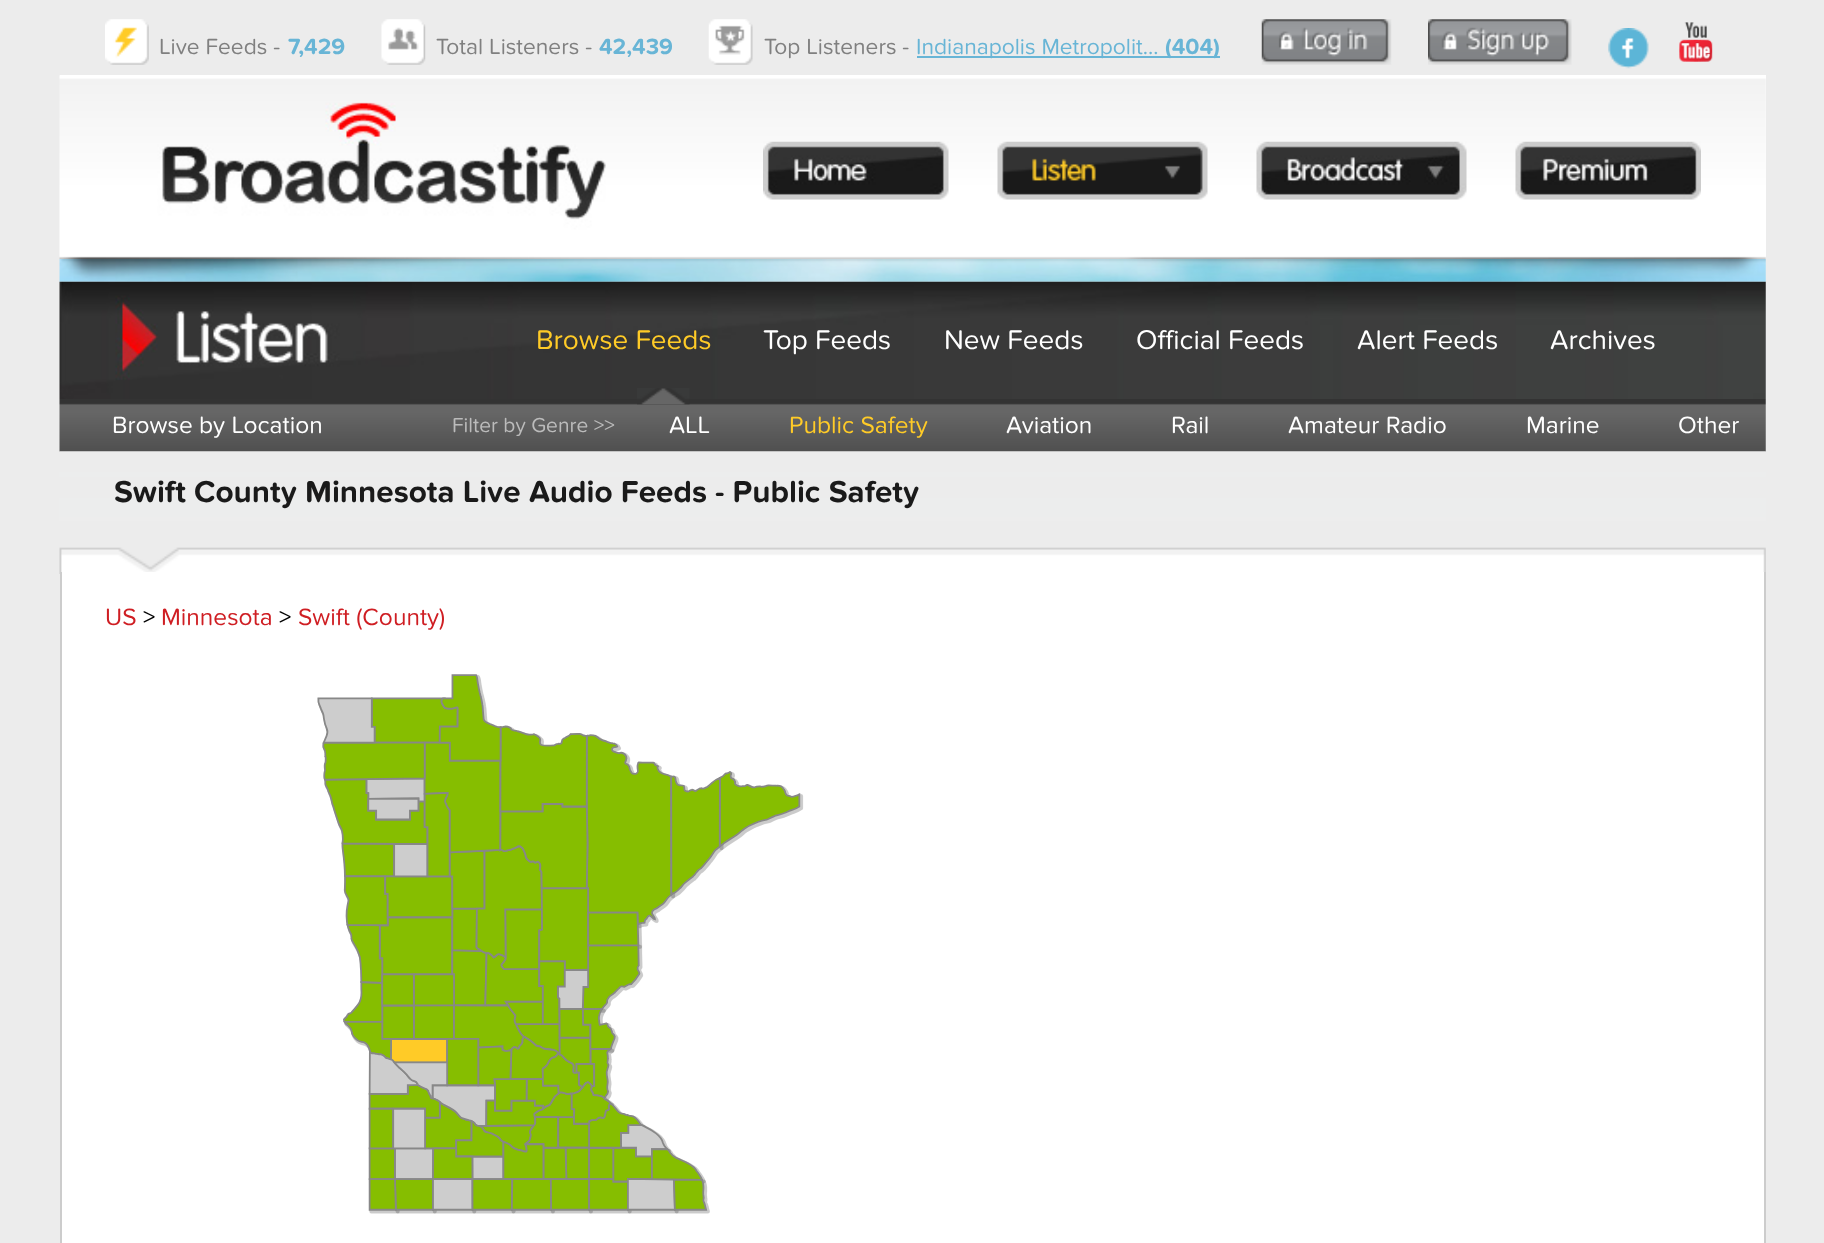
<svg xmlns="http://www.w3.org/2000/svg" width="1824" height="1243">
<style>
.a{font:22.75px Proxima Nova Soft;fill:#808080}
.b{font:bold 22.75px Proxima Nova Soft;fill:#68b5d6}
.c{font:22.75px Proxima Nova Soft;fill:#68b5d6}
.d{font:28px Proxima Nova Soft;fill:#ffcb27}
.e{font:28px Proxima Nova Soft;fill:#fff}
.f{font:24.5px Proxima Nova Soft;fill:#fff}
.g{font:21px Proxima Nova Soft;fill:#bbb}
.h{font:24.5px Proxima Nova Soft;fill:#ffcb27}
.i{font:bold 31.5px Proxima Nova Soft;fill:#1a1a1a}
.j{font:24.5px Proxima Nova Soft;fill:#cf1e23}
.k{font:24.5px Proxima Nova Soft;fill:#000}
</style>
<rect width="100%" height="100%" fill="#ececec"/>
<image href="1.png" x="105" y="19" width="44" height="46"/>
<image href="2.png" x="381" y="19" width="45" height="46"/>
<image href="3.png" x="708" y="19" width="45" height="46"/>
<path fill="#68b5d6" d="M917 56h303v2H917z"/>
<image href="4.png" x="1261" y="19" width="131" height="46"/>
<image href="5.png" x="1428" y="19" width="144" height="46"/>
<image href="6.png" x="1608" y="28" width="41" height="41"/>
<image href="7.png" x="1679" y="22" width="34" height="40"/>
<path fill="#fff" d="M60 75h1706v184H60z"/>
<image href="8.png" x="59" y="75" width="1707" height="184"/>
<image href="9.png" x="763" y="141" width="186" height="59"/>
<image href="10.png" x="997" y="141" width="211" height="59"/>
<image href="11.png" x="1256" y="141" width="211" height="59"/>
<image href="12.png" x="1515" y="141" width="186" height="59"/>
<image href="13.png" x="59" y="259" width="1707" height="23"/>
<image href="14.png" x="59" y="281" width="1707" height="118"/>
<image href="15.png" x="59" y="399" width="1707" height="53"/>
<image href="16.png" x="637" y="388" width="53" height="17"/>
<image href="17.png" x="59" y="451" width="1707" height="123"/>
<path fill="#fff" d="M62 572h1702v671H62z"/>
<path fill="#ccc" d="M1764 572h2v671H1764z"/>
<path fill="#ccc" d="M60 572h2v671H60z"/>
<image href="18.png" x="317" y="674" width="487" height="540"/>
<text class="a" x="159" y="54">Live Feeds -</text>
<text class="b" x="288" y="54">7,429</text>
<text class="a" x="436" y="54">Total Listeners -</text>
<text class="b" x="599" y="54">42,439</text>
<text class="a" x="764" y="54">Top Listeners -</text>
<text class="c" x="916" y="54">Indianapolis Metropolit...</text>
<text class="b" x="1165" y="54">(404)</text>
<text class="d" x="536" y="349">Browse Feeds</text>
<text class="e" x="763" y="349">Top Feeds</text>
<text class="e" x="944" y="349">New Feeds</text>
<text class="e" x="1136" y="349">Official Feeds</text>
<text class="e" x="1357" y="349">Alert Feeds</text>
<text class="e" x="1550" y="349">Archives</text>
<text class="f" x="112" y="433">Browse by Location</text>
<text class="g" x="452" y="432">Filter by Genre &gt;&gt;</text>
<text class="f" x="669" y="433">ALL</text>
<text class="h" x="789" y="433">Public Safety</text>
<text class="f" x="1006" y="433">Aviation</text>
<text class="f" x="1171" y="433">Rail</text>
<text class="f" x="1288" y="433">Amateur Radio</text>
<text class="f" x="1526" y="433">Marine</text>
<text class="f" x="1678" y="433">Other</text>
<text class="i" x="114" y="502">Swift County Minnesota Live Audio Feeds - Public Safety</text>
<text class="j" x="105" y="625">US</text>
<text class="k" x="143" y="625">&gt;</text>
<text class="j" x="161" y="625">Minnesota</text>
<text class="k" x="279" y="625">&gt;</text>
<text class="j" x="298" y="625">Swift (County)</text>
</svg>
